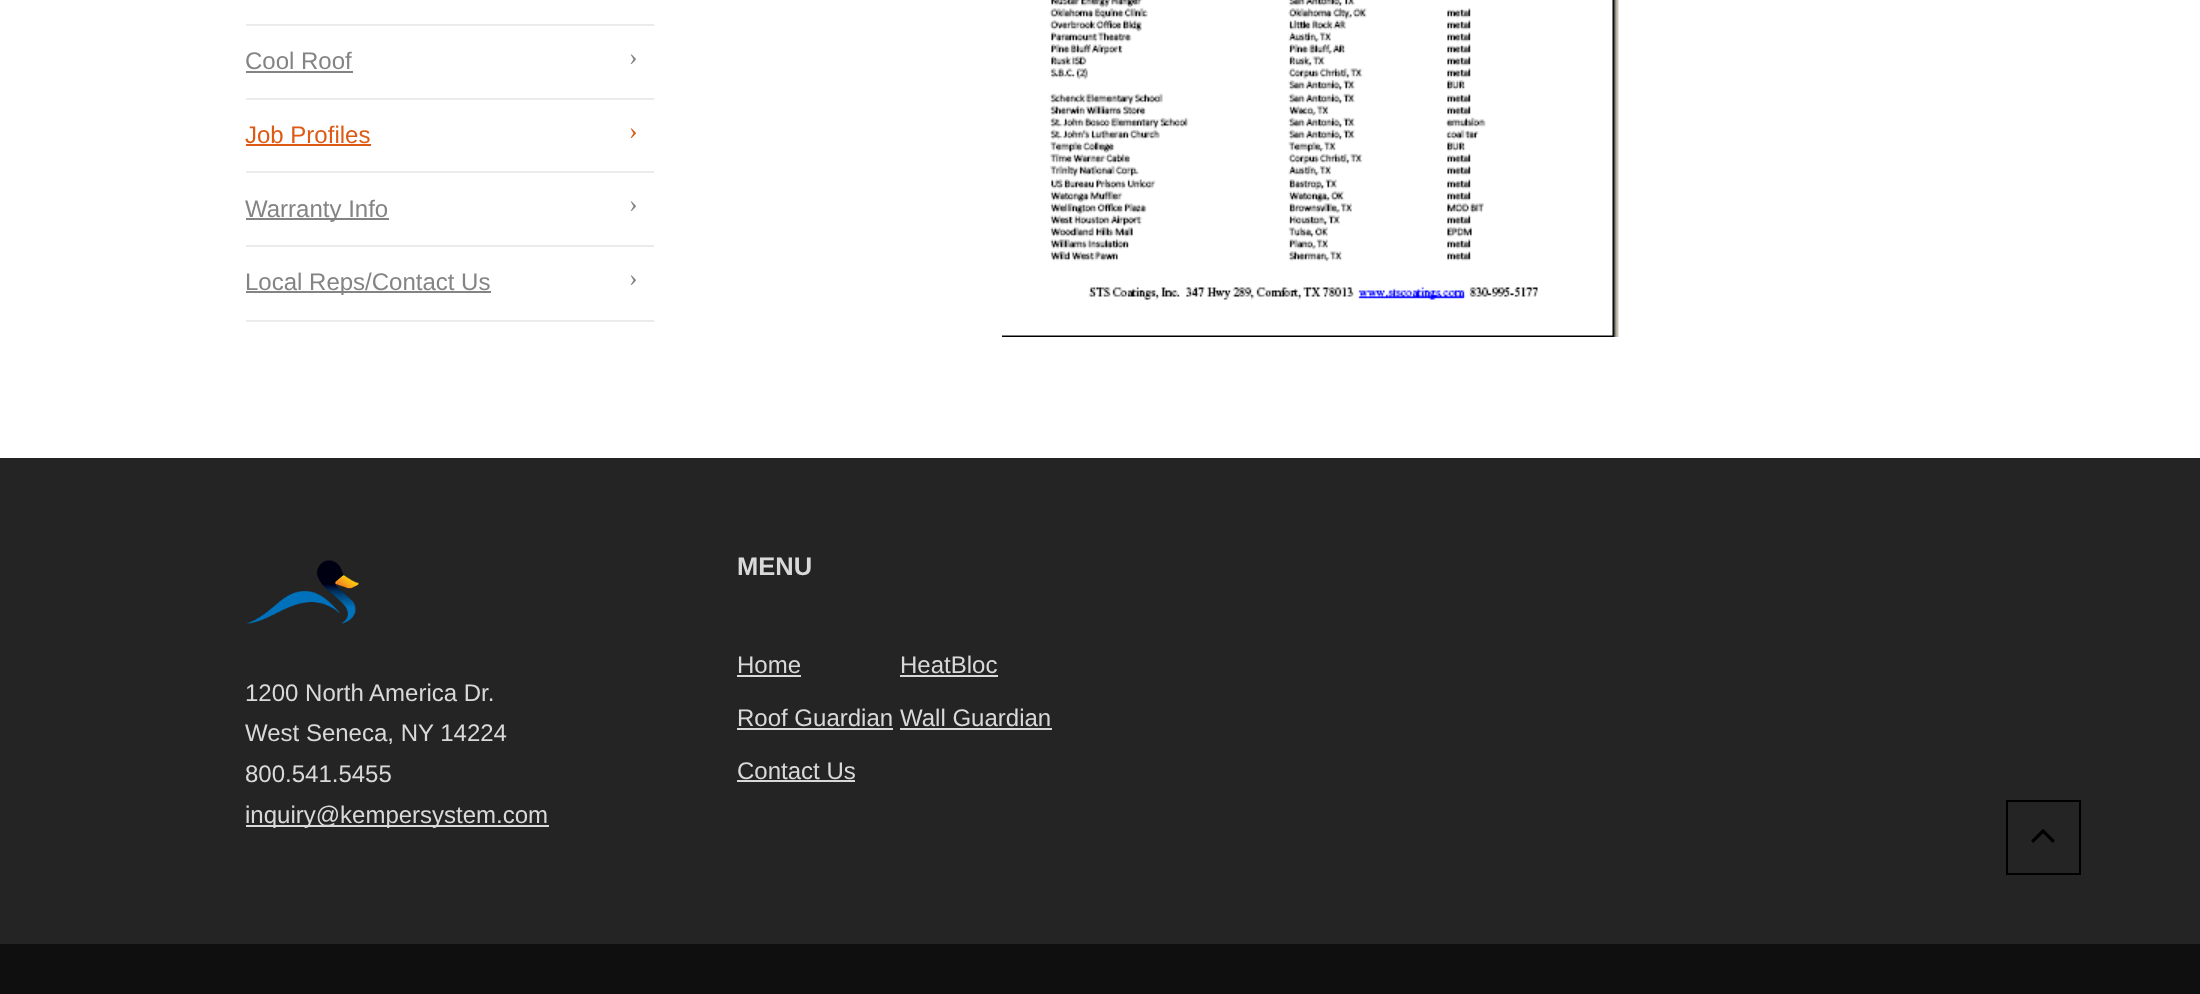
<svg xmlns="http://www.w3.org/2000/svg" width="2200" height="994">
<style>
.a{font:24px Liberation Sans;fill:#848484}
.b{font:25.5px Liberation Serif;fill:#848484}
.c{font:24px Liberation Sans;fill:#de5914}
.d{font:25.5px Liberation Serif;fill:#de5914}
.e{font:24px Liberation Sans;fill:#d9d9d9}
.f{font:bold 25.5px Liberation Sans;fill:#d9d9d9}
</style>
<rect width="100%" height="100%" fill="#fff"/>
<path fill="#ebebeb" d="M246 24h408v2H246z"/>
<path fill="#ebebeb" d="M246 98h408v2H246z"/>
<path fill="#848484" d="M246 71h107v2H246z"/>
<path fill="#ebebeb" d="M246 171h408v2H246z"/>
<path fill="#de5914" d="M246 144h125v2H246z"/>
<path fill="#ebebeb" d="M246 245h408v2H246z"/>
<path fill="#848484" d="M246 218h143v2H246z"/>
<path fill="#ebebeb" d="M246 320h408v2H246z"/>
<path fill="#848484" d="M246 291h245v2H246z"/>
<image href="1.png" x="1002" y="0" width="617" height="337"/>
<path fill="#242424" d="M0 458h2200v486H0z"/>
<image href="2.png" x="246" y="560" width="113" height="64"/>
<path fill="#d9d9d9" d="M246 825h303v2H246z"/>
<path fill="#d9d9d9" d="M737 675h64v2H737z"/>
<path fill="#d9d9d9" d="M900 675h98v2H900z"/>
<path fill="#d9d9d9" d="M737 728h156v2H737z"/>
<path fill="#d9d9d9" d="M900 728h152v2H900z"/>
<path fill="#d9d9d9" d="M737 780h118v2H737z"/>
<path fill="#0f0f0f" d="M0 944h2200v50H0z"/>
<path fill="none" stroke="#000" stroke-width="2" d="M2007 801h73v73H2007z"/>
<image href="3.png" x="2031" y="829" width="24" height="14"/>
<text class="a" x="245" y="69">Cool Roof</text>
<text class="b" x="629" y="65">›</text>
<text class="c" x="245" y="143">Job Profiles</text>
<text class="d" x="629" y="139">›</text>
<text class="a" x="245" y="217">Warranty Info</text>
<text class="b" x="629" y="212">›</text>
<text class="a" x="245" y="290">Local Reps/Contact Us</text>
<text class="b" x="629" y="286">›</text>
<text class="e" x="245" y="701">1200 North America Dr.</text>
<text class="e" x="245" y="741">West Seneca, NY 14224</text>
<text class="e" x="245" y="782">800.541.5455</text>
<text class="e" x="245" y="823">inquiry@kempersystem.com</text>
<text class="f" x="737" y="575">MENU</text>
<text class="e" x="737" y="673">Home</text>
<text class="e" x="900" y="673">HeatBloc</text>
<text class="e" x="737" y="726">Roof Guardian</text>
<text class="e" x="900" y="726">Wall Guardian</text>
<text class="e" x="737" y="779">Contact Us</text>
</svg>
